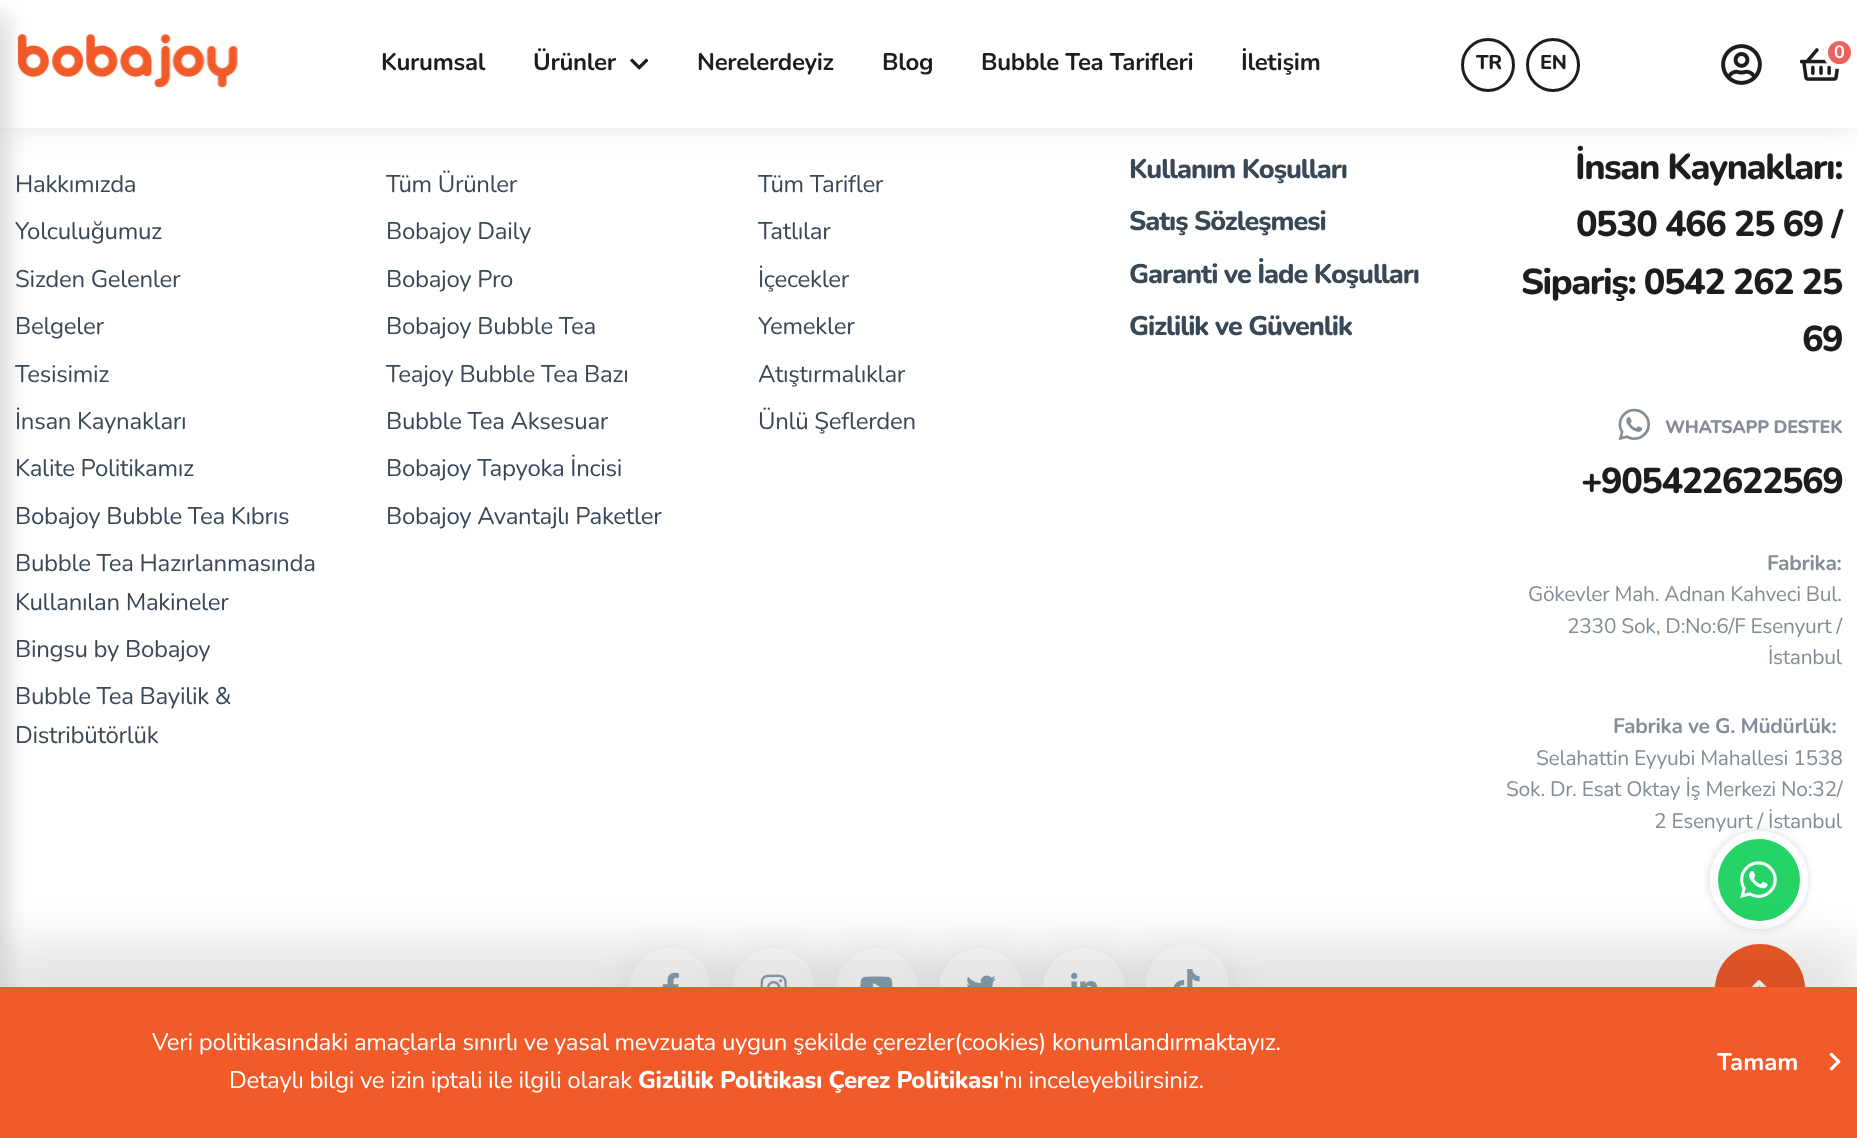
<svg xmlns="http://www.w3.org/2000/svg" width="1857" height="1138">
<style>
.a{font:bold 24px Nunito;letter-spacing:-0.3px;fill:#1e1d1c}
.b{font:800 20px Nunito;letter-spacing:-0.3px;fill:#1e1d1c}
.c{font:bold 18px Nunito;letter-spacing:-0.3px;fill:#fff}
.d{font:24px Nunito;letter-spacing:-0.3px;fill:#394857}
.e{font:800 27px Nunito;letter-spacing:-1.05px;fill:#394857}
.f{font:800 36px Nunito;letter-spacing:-1.5px;fill:#1e1d1c}
.g{font:800 18px Nunito;letter-spacing:-0.3px;fill:#838d97}
.h{font:bold 21px Nunito;letter-spacing:-0.3px;fill:#838d97}
.i{font:21px Nunito;letter-spacing:-0.3px;fill:#838d97}
.j{font:24px Nunito;letter-spacing:-0.3px;fill:#fff}
.k{font:800 24px Nunito;letter-spacing:-0.3px;fill:#fff}
.l{font:bold 24px Nunito;fill:#fff}
</style>
<rect width="100%" height="100%" fill="#fff"/>
<path fill="#1e1d1c1a" filter="blur(15px)" d="M0 0h1857v128H0z"/>
<path fill="#fff" d="M0 0h1857v128H0z"/>
<image href="1.png" x="17" y="34" width="221" height="54"/>
<path fill="#00000026" filter="blur(11px)" d="M-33 15h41v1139H-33z"/>
<image href="2.png" x="630" y="58" width="19" height="12"/>
<circle fill="none" stroke="#1e1d1c" stroke-width="3" cx="1488" cy="65" r="25.5"/>
<circle fill="none" stroke="#1e1d1c" stroke-width="3" cx="1553" cy="65" r="25.5"/>
<image href="3.png" x="1721" y="44" width="41" height="41"/>
<image href="4.png" x="1800" y="48" width="39" height="33"/>
<circle fill="#ef615e" stroke="#fff" stroke-width="5" cx="1839.5" cy="52.5" r="14"/>
<image href="5.png" x="1618" y="408" width="32" height="33"/>
<rect fill="#39485726" filter="blur(19px)" x="629" y="960" width="82" height="83" rx="41"/>
<rect fill="#fff" x="629" y="948" width="82" height="83" rx="41"/>
<image href="6.png" x="662" y="972" width="17" height="15"/>
<rect fill="#39485726" filter="blur(19px)" x="732" y="960" width="83" height="83" rx="41.5"/>
<circle fill="#fff" cx="773.5" cy="989.5" r="41.5"/>
<image href="7.png" x="760" y="974" width="27" height="13"/>
<rect fill="#39485726" filter="blur(19px)" x="836" y="960" width="82" height="83" rx="41"/>
<rect fill="#fff" x="836" y="948" width="82" height="83" rx="41"/>
<image href="8.png" x="860" y="976" width="33" height="11"/>
<rect fill="#39485726" filter="blur(19px)" x="939" y="960" width="83" height="83" rx="41.5"/>
<circle fill="#fff" cx="980.5" cy="989.5" r="41.5"/>
<image href="9.png" x="967" y="975" width="29" height="12"/>
<rect fill="#39485726" filter="blur(19px)" x="1043" y="960" width="82" height="83" rx="41"/>
<rect fill="#fff" x="1043" y="948" width="82" height="83" rx="41"/>
<image href="10.png" x="1071" y="972" width="27" height="15"/>
<rect fill="#39485726" filter="blur(19px)" x="1146" y="956" width="83" height="82" rx="41"/>
<rect fill="#fff" x="1146" y="944" width="83" height="82" rx="41"/>
<image href="11.png" x="1173" y="969" width="27" height="18"/>
<rect fill="#00000026" filter="blur(4px)" x="1710" y="831" width="98" height="98" rx="49"/>
<circle fill="#f15a29" cx="1760" cy="989" r="45"/>
<image href="13.png" x="1751" y="980" width="16" height="7"/>
<text class="a" x="381" y="70">Kurumsal</text>
<text class="a" x="533" y="70">Ürünler</text>
<text class="a" x="697" y="70">Nerelerdeyiz</text>
<text class="a" x="882" y="70">Blog</text>
<text class="a" x="981" y="70">Bubble Tea Tarifleri</text>
<text class="a" x="1241" y="70">İletişim</text>
<text class="b" x="1476" y="69">TR</text>
<text class="b" x="1540" y="69">EN</text>
<text class="c" x="1834" y="58">0</text>
<text class="d" x="15" y="192">Hakkımızda</text>
<text class="d" x="15" y="239">Yolculuğumuz</text>
<text class="d" x="15" y="287">Sizden Gelenler</text>
<text class="d" x="15" y="334">Belgeler</text>
<text class="d" x="15" y="382">Tesisimiz</text>
<text class="d" x="15" y="429">İnsan Kaynakları</text>
<text class="d" x="15" y="476">Kalite Politikamız</text>
<text class="d" x="15" y="524">Bobajoy Bubble Tea Kıbrıs</text>
<text class="d" x="15" y="571">Bubble Tea Hazırlanmasında</text>
<text class="d" x="15" y="610">Kullanılan Makineler</text>
<text class="d" x="15" y="657">Bingsu by Bobajoy</text>
<text class="d" x="15" y="704">Bubble Tea Bayilik &amp;</text>
<text class="d" x="15" y="743">Distribütörlük</text>
<text class="d" x="386" y="192">Tüm Ürünler</text>
<text class="d" x="386" y="239">Bobajoy Daily</text>
<text class="d" x="386" y="287">Bobajoy Pro</text>
<text class="d" x="386" y="334">Bobajoy Bubble Tea</text>
<text class="d" x="386" y="382">Teajoy Bubble Tea Bazı</text>
<text class="d" x="386" y="429">Bubble Tea Aksesuar</text>
<text class="d" x="386" y="476">Bobajoy Tapyoka İncisi</text>
<text class="d" x="386" y="524">Bobajoy Avantajlı Paketler</text>
<text class="d" x="758" y="192">Tüm Tarifler</text>
<text class="d" x="758" y="239">Tatlılar</text>
<text class="d" x="758" y="287">İçecekler</text>
<text class="d" x="758" y="334">Yemekler</text>
<text class="d" x="758" y="382">Atıştırmalıklar</text>
<text class="d" x="758" y="429">Ünlü Şeflerden</text>
<text class="e" x="1129" y="178">Kullanım Koşulları</text>
<text class="e" x="1129" y="230">Satış Sözleşmesi</text>
<text class="e" x="1129" y="283">Garanti ve İade Koşulları</text>
<text class="e" x="1129" y="335">Gizlilik ve Güvenlik</text>
<text class="f" x="1575" y="179">İnsan Kaynakları:</text>
<text class="f" x="1576" y="236">0530 466 25 69 /</text>
<text class="f" x="1521" y="294">Sipariş: 0542 262 25</text>
<text class="f" x="1802" y="351">69</text>
<text class="g" x="1665" y="433">WHATSAPP DESTEK</text>
<text class="f" x="1581" y="493">+905422622569</text>
<text class="h" x="1767" y="570">Fabrika:</text>
<text class="i" x="1528" y="601">Gökevler Mah. Adnan Kahveci Bul.</text>
<text class="i" x="1567" y="633">2330 Sok, D:No:6/F Esenyurt /</text>
<text class="i" x="1768" y="664">İstanbul</text>
<text class="h" x="1613" y="733">Fabrika ve G. Müdürlük:</text>
<text class="i" x="1536" y="765">Selahattin Eyyubi Mahallesi 1538</text>
<text class="i" x="1506" y="796">Sok. Dr. Esat Oktay İş Merkezi No:32/</text>
<text class="i" x="1654" y="828">2 Esenyurt / İstanbul</text>
<circle fill="#25d366" stroke="#fff" stroke-width="8" cx="1759" cy="880" r="45"/>
<image href="12.png" x="1740" y="861" width="37" height="38"/>
<path fill="#0000001a" filter="blur(22.5px)" d="M0 942h1857v152H0z"/>
<path fill="#f15a29" d="M0 987h1857v151H0z"/>
<text class="j" x="152" y="1050">Veri politikasındaki amaçlarla sınırlı ve yasal mevzuata uygun şekilde çerezler(cookies) konumlandırmaktayız.</text>
<text class="j" x="229" y="1088">Detaylı bilgi ve izin iptali ile ilgili olarak</text>
<text class="k" x="638" y="1088">Gizlilik Politikası Çerez Politikası</text>
<text class="j" x="999" y="1088">'nı inceleyebilirsiniz.</text>
<text class="l" x="1717" y="1070">Tamam</text>
<image href="14.png" x="1829" y="1052" width="12" height="19"/>
</svg>
